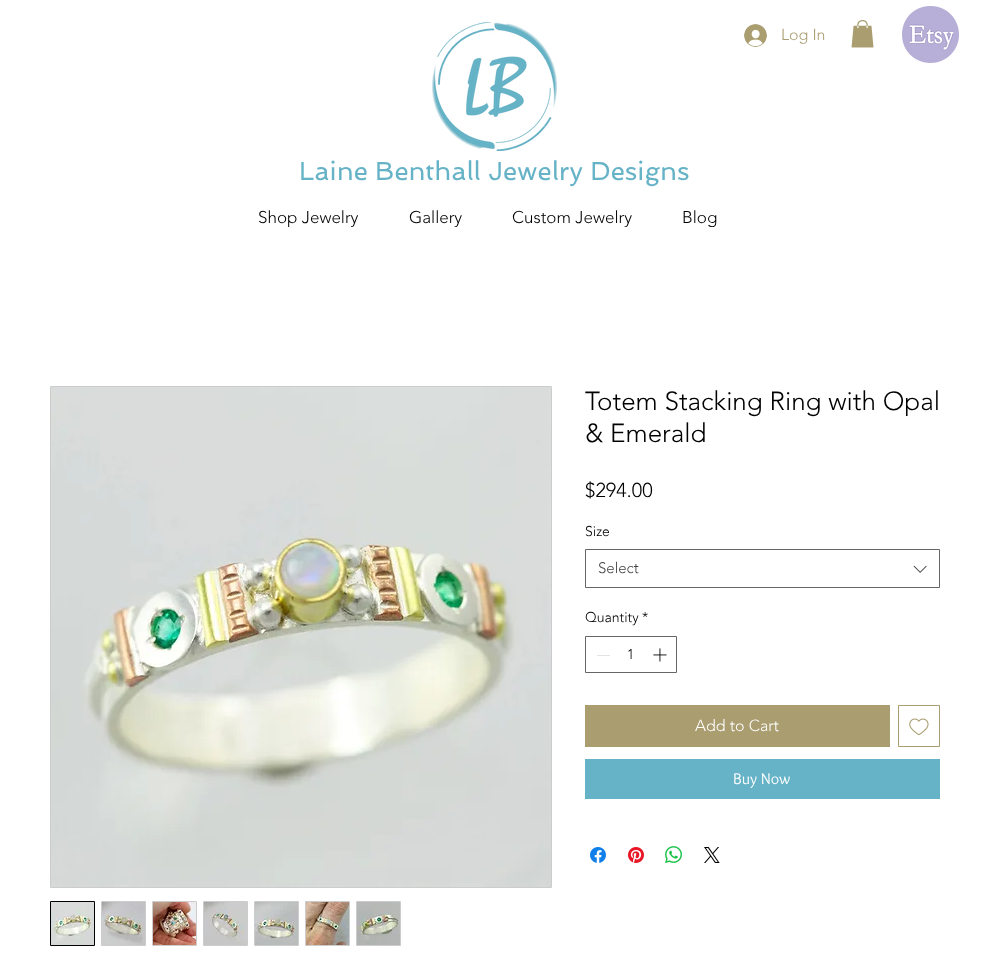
<svg xmlns="http://www.w3.org/2000/svg" width="989" height="954">
<style>
.a{font:300 16px 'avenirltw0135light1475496';fill:#aa9e71}
.b{font:26px Spinnaker;fill:#66b3c7}
.c{font:300 17px 'avenirltw0135light1475496';fill:#000}
.d{font:300 26px 'avenirltw0135light1475496';fill:#000}
.e{font:300 20px 'avenirltw0135light1475496';fill:#000}
.f{font:300 14px 'avenirltw0135light1475496';fill:#000}
.g{font:300 15px 'avenirltw0135light1475496';fill:#444}
.h{font:300 16px 'avenirltw0135light1475496';fill:#fff}
.i{font:16px Overlock;fill:#fff}
</style>
<rect width="100%" height="100%" fill="#fff"/>
<image href="1.png" x="432" y="22" width="125" height="129"/>
<image href="2.png" x="744" y="24" width="23" height="23"/>
<image href="3.png" x="851" y="20" width="23" height="28"/>
<image href="4.png" x="902" y="6" width="57" height="57"/>
<path fill="none" stroke="#ccc" d="M50.5 386.5h501v501H50.5z"/>
<image href="5.png" x="51" y="387" width="500" height="500"/>
<path fill="none" stroke="#000" d="M50.5 901.5h44v44H50.5z"/>
<image href="6.png" x="51" y="902" width="43" height="43"/>
<path fill="none" stroke="#ccc" d="M101.5 901.5h44v44H101.5z"/>
<image href="7.png" x="102" y="902" width="43" height="43"/>
<path fill="none" stroke="#ccc" d="M152.5 901.5h44v44H152.5z"/>
<image href="8.png" x="153" y="902" width="43" height="43"/>
<path fill="none" stroke="#ccc" d="M203.5 901.5h44v44H203.5z"/>
<image href="9.png" x="204" y="902" width="43" height="43"/>
<path fill="none" stroke="#ccc" d="M254.5 901.5h44v44H254.5z"/>
<image href="10.png" x="255" y="902" width="43" height="43"/>
<path fill="none" stroke="#ccc" d="M305.5 901.5h44v44H305.5z"/>
<image href="11.png" x="306" y="902" width="43" height="43"/>
<path fill="none" stroke="#ccc" d="M356.5 901.5h44v44H356.5z"/>
<image href="12.png" x="357" y="902" width="43" height="43"/>
<path fill="none" stroke="#666" d="M585.5 549.5h354v38H585.5z"/>
<image href="13.png" x="913" y="565" width="14" height="8"/>
<path fill="none" stroke="#666" d="M585.5 636.5h91v36H585.5z"/>
<path fill="#e3e3e3" d="M597 655h13v1H597z"/>
<image href="14.png" x="653" y="648" width="14" height="14"/>
<path fill="#aa9e71" d="M585 705h305v42H585z"/>
<path fill="none" stroke="#aa9e71" d="M898.5 705.5h41v41H898.5z"/>
<image href="15.png" x="909" y="718" width="20" height="18"/>
<path fill="#66b3c7" d="M585 759h355v40H585z"/>
<image href="16.png" x="590" y="847" width="16" height="16"/>
<image href="17.png" x="628" y="847" width="16" height="16"/>
<image href="18.png" x="665" y="846" width="17" height="17"/>
<image href="19.png" x="704" y="847" width="16" height="16"/>
<text class="a" x="781" y="40">Log In</text>
<text class="b" x="299" y="180">Laine Benthall Jewelry Designs</text>
<text class="c" x="258" y="223">Shop Jewelry</text>
<text class="c" x="409" y="223">Gallery</text>
<text class="c" x="512" y="223">Custom Jewelry</text>
<text class="c" x="682" y="223">Blog</text>
<text class="d" x="585" y="410">Totem Stacking Ring with Opal</text>
<text class="d" x="585" y="442">&amp; Emerald</text>
<text class="e" x="585" y="497">$294.00</text>
<text class="f" x="585" y="536">Size</text>
<text class="g" x="598" y="573">Select</text>
<text class="f" x="585" y="622">Quantity</text>
<text class="f" x="642" y="622">*</text>
<text class="f" x="627" y="659">1</text>
<text class="h" x="695" y="731">Add to Cart</text>
<text class="i" x="733" y="784">Buy Now</text>
</svg>
